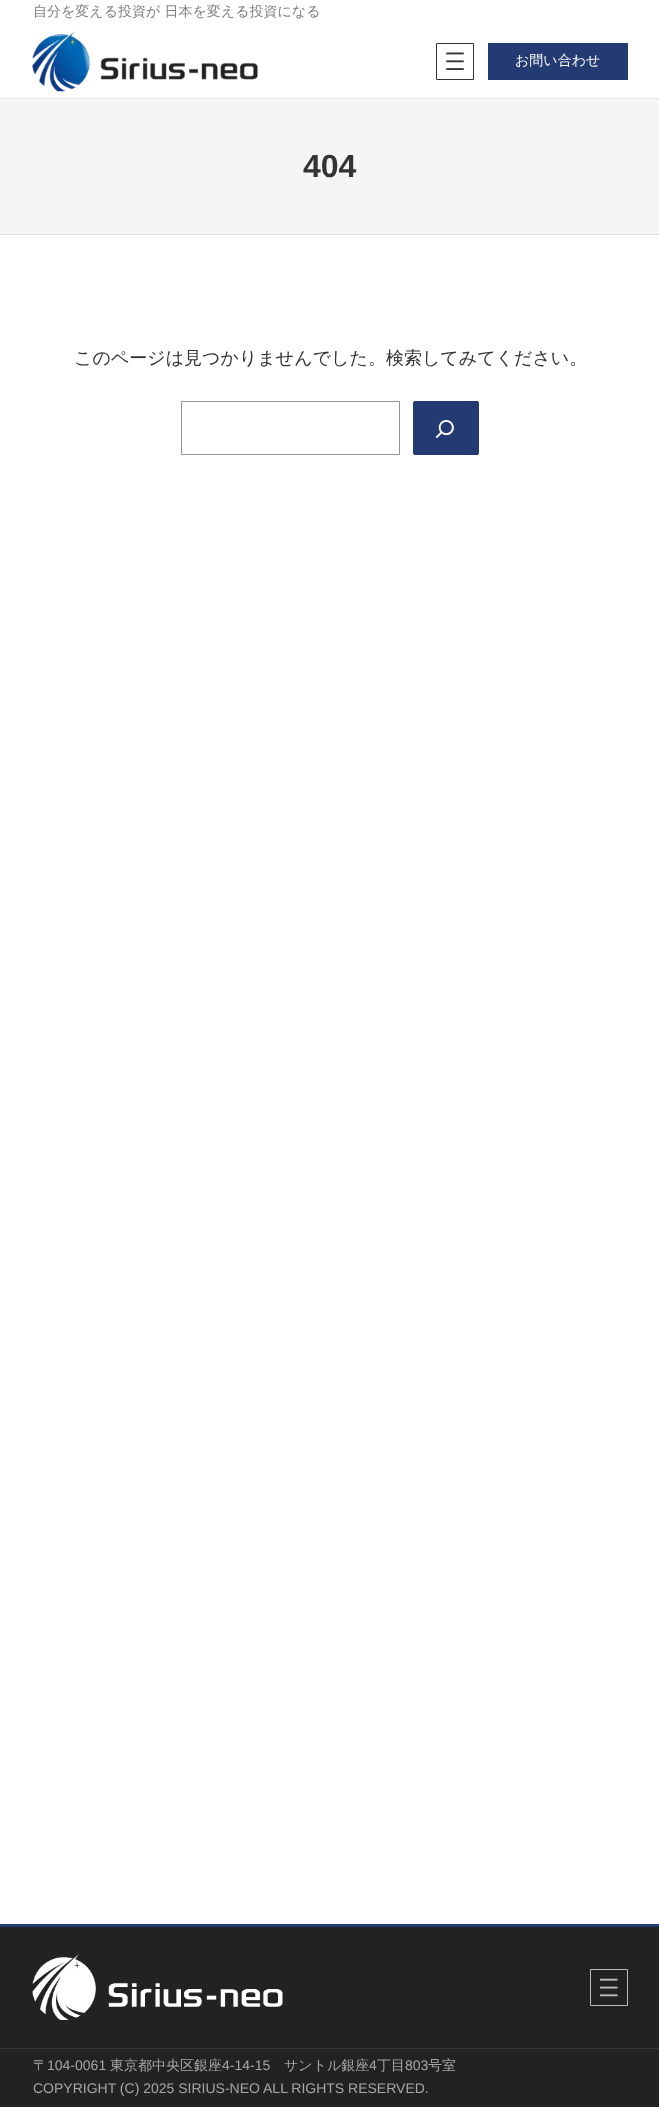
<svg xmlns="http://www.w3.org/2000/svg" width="659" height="2107">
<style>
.a{font:500 14px WenQuanYi Zen Hei;fill:#808080}
.b{font:500 14px WenQuanYi Zen Hei;fill:#fff}
.c{font:bold 32px Liberation Sans;fill:#333}
.d{font:500 18px WenQuanYi Zen Hei;fill:#333}
.e{font:500 14px WenQuanYi Zen Hei;fill:#a7a7a7}
.f{font:14px Liberation Sans;fill:#a7a7a7}
</style>
<rect width="100%" height="100%" fill="#fff"/>
<image href="1.png" x="32" y="31" width="226" height="61"/>
<path fill="none" stroke="#333" d="M436.5 43.5h37v36H436.5z"/>
<image href="2.png" x="446" y="52" width="18" height="18"/>
<path fill="#233a73" d="M488 43h140v37H488z"/>
<path fill="#e6e6e6" d="M0 98h659v1H0z"/>
<path fill="#f5f5f5" d="M0 99h659v135H0z"/>
<path fill="#ddd" d="M0 234h659v1H0z"/>
<path fill="none" stroke="#949494" d="M181.5 401.5h218v53H181.5z"/>
<rect fill="#233a73" x="413" y="401" width="66" height="54" rx="2"/>
<image href="3.png" x="435" y="420" width="19" height="19"/>
<path fill="#222" d="M0 1927h659v180H0z"/>
<path fill="#233a73" d="M0 1924h659v3H0z"/>
<image href="4.png" x="32" y="1954" width="251" height="66"/>
<path fill="none" stroke="#bdbdbd" d="M590.5 1969.5h37v36H590.5z"/>
<image href="5.png" x="600" y="1978" width="18" height="19"/>
<path fill="#383838" d="M0 2048h659v1H0z"/>
<text class="a" x="33" y="16">自分を変える投資が 日本を変える投資になる</text>
<text class="b" x="515" y="65">お問い合わせ</text>
<text class="c" x="303" y="177">404</text>
<text class="d" x="74" y="364">このページは見つかりませんでした。検索してみてください。</text>
<text class="e" x="33" y="2070">〒</text>
<text class="f" x="47" y="2070">104-0061</text>
<text class="e" x="110" y="2070">東京都中央区銀座</text>
<text class="f" x="222" y="2070">4-14-15</text>
<text class="e" x="284" y="2070">サントル銀座</text>
<text class="f" x="369" y="2070">4</text>
<text class="e" x="377" y="2070">丁目</text>
<text class="f" x="405" y="2070">803</text>
<text class="e" x="428" y="2070">号室</text>
<text class="f" x="33" y="2093">COPYRIGHT (C) 2025 SIRIUS-NEO ALL RIGHTS RESERVED.</text>
</svg>
